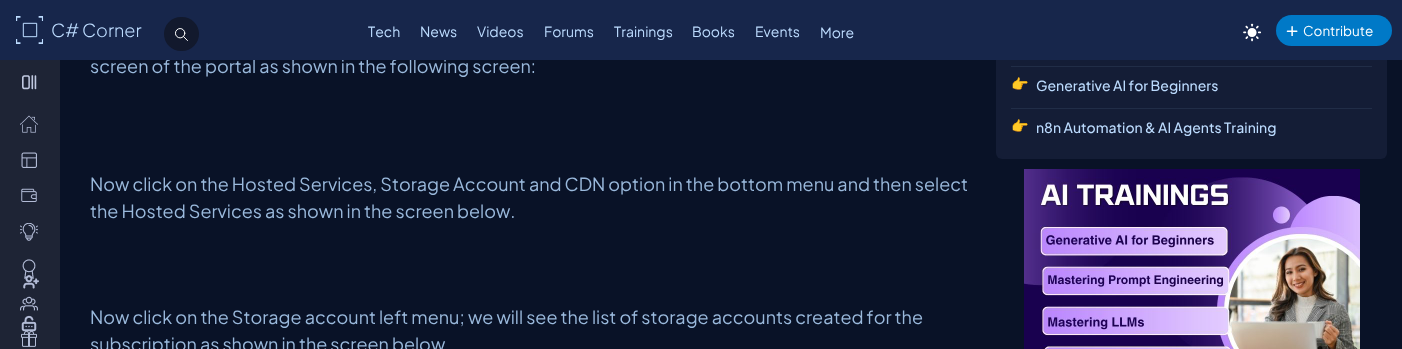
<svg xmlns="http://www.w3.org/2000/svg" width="1402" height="349">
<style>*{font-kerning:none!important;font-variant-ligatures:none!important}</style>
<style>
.a{font:18px Plus Jakarta Sans;fill:#9ab9dc}
.b{font:13.5px Plus Jakarta Sans;fill:#fff}
.c{font:14px Plus Jakarta Sans;fill:#bcdbfe}
.d{font:300 18px Plus Jakarta Sans;fill:#bcdbfe}
.e{font:14px Noto Color Emoji;fill:#9ab9dc}
.f{font:500 14px Plus Jakarta Sans;fill:#bcdbfe}
</style>
<rect width="100%" height="100%" fill="#091227"/>
<path fill="#1e2435" d="M0 60h60v289H0z"/>
<image href="5.png" x="22" y="75" width="15" height="15"/>
<image href="6.png" x="20" y="115" width="18" height="18"/>
<image href="7.png" x="21" y="152" width="16" height="16"/>
<image href="8.png" x="21" y="188" width="16" height="14"/>
<image href="9.png" x="20" y="223" width="18" height="18"/>
<image href="10.png" x="22" y="259" width="14" height="20"/>
<image href="11.png" x="20" y="296" width="18" height="15"/>
<image href="12.png" x="21" y="331" width="16" height="16"/>
<image href="13.png" x="23" y="275" width="16" height="14"/>
<image href="14.png" x="21" y="315" width="16" height="17"/>
<rect fill="#141d36" x="996" y="-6" width="391" height="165" rx="6"/>
<path fill="#212d47" d="M1011 66h361v1H1011z"/>
<path fill="#212d47" d="M1011 108h361v1H1011z"/>
<image href="15.png" x="1024" y="169" width="336" height="180"/>
<text class="a" x="90" y="73">screen of the portal as shown in the following screen:</text>
<path fill="#17264b" d="M0 0h1402v60H0z"/>
<rect fill="#12192d" x="164" y="17" width="35" height="34" rx="17"/>
<image href="2.png" x="175" y="28" width="13" height="13"/>
<rect fill="#0079c7" x="1276" y="15" width="116" height="31" rx="15.5"/>
<image href="4.png" x="1286" y="26" width="12" height="10"/>
<text class="b" x="1303" y="36">Contribute</text>
<image href="3.png" x="1243" y="23" width="18" height="19"/>
<text class="c" x="820" y="38">More</text>
<text class="c" x="755" y="37">Events</text>
<text class="c" x="692" y="37">Books</text>
<text class="c" x="614" y="37">Trainings</text>
<text class="c" x="544" y="37">Forums</text>
<text class="c" x="477" y="37">Videos</text>
<text class="c" x="420" y="37">News</text>
<text class="c" x="368" y="37">Tech</text>
<text class="d" x="51" y="37">C# Corner</text>
<image href="1.png" x="16" y="16" width="28" height="28"/>
<path fill="none" stroke="#bcdbfe" stroke-width="0.7" d="M23.35 23.35h13.3v13.3H23.35z"/>
<path fill="none" stroke="#bcdbfe" stroke-width="0.7" d="M23.35 23.35h13.3v13.3H23.35z"/>
<text class="a" x="90" y="191">Now click on the Hosted Services, Storage Account and CDN option in the bottom menu and then select</text>
<text class="a" x="90" y="218">the Hosted Services as shown in the screen below.</text>
<text class="a" x="90" y="324">Now click on the Storage account left menu; we will see the list of storage accounts created for the</text>
<text class="a" x="90" y="351">subscription as shown in the screen below</text>
<text class="e" x="1011" y="89">👉</text>
<text class="f" x="1036" y="91">Generative AI for Beginners</text>
<text class="e" x="1011" y="131">👉</text>
<text class="f" x="1036" y="133">n8n Automation &amp; AI Agents Training</text>
</svg>
